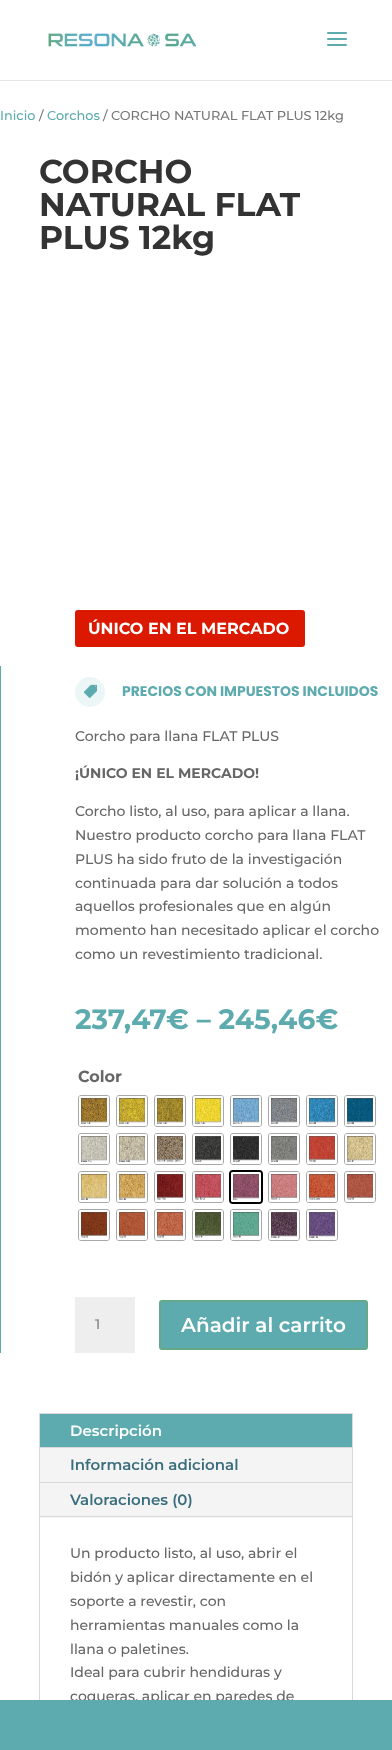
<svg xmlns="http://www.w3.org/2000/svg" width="392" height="1750">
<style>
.a{font:100 12.9px Montserrat;fill:#5dabae}
.b{font:100 12.9px Montserrat;fill:#767676}
.c{font:100 33px 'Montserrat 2';fill:#333}
.d{font:100 16px 'Montserrat 2';fill:#fff}
.e{font:bold 14px Poppins;fill:#5dabae}
.f{font:100 14px Montserrat;fill:#666}
.g{font:100 14px 'Montserrat 2';fill:#666}
.h{font:100 28px 'Montserrat 2';fill:#5dabae}
.i{font:100 16px 'Montserrat 2';fill:#666}
.j{font:600 14px Montserrat;fill:#999}
.k{font:600 20px Montserrat;fill:#fff}
.l{font:600 15px Montserrat;fill:#fff}
.m{font:600 15px Montserrat;fill:#3a6e7d}
</style>
<rect width="100%" height="100%" fill="#fff"/>
<path fill="#e6e6e6" d="M0 80h392v1H0z"/>
<image href="1.png" x="48" y="33" width="148" height="14"/>
<image href="2.png" x="327" y="32" width="20" height="14"/>
<path fill="#5dabae" d="M0 666h1v687H0z"/>
<rect fill="#db1900" x="75" y="610" width="230" height="37" rx="3"/>
<circle fill="#edf6f6" cx="90" cy="692" r="15"/>
<image href="3.png" x="83" y="684" width="14" height="14"/>
<rect fill="none" stroke="#a8a8a8" x="78.5" y="1095.5" width="31" height="31" rx="2.5"/>
<rect fill="#fff" x="79" y="1096" width="30" height="30" rx="2"/>
<image href="4.png" x="81" y="1098" width="26" height="26"/>
<rect fill="none" stroke="#a8a8a8" x="116.5" y="1095.5" width="31" height="31" rx="2.5"/>
<rect fill="#fff" x="117" y="1096" width="30" height="30" rx="2"/>
<image href="5.png" x="119" y="1098" width="26" height="26"/>
<rect fill="none" stroke="#a8a8a8" x="154.5" y="1095.5" width="31" height="31" rx="2.5"/>
<rect fill="#fff" x="155" y="1096" width="30" height="30" rx="2"/>
<image href="6.png" x="157" y="1098" width="26" height="26"/>
<rect fill="none" stroke="#a8a8a8" x="192.5" y="1095.5" width="31" height="31" rx="2.5"/>
<rect fill="#fff" x="193" y="1096" width="30" height="30" rx="2"/>
<image href="7.png" x="195" y="1098" width="26" height="26"/>
<rect fill="none" stroke="#a8a8a8" x="230.5" y="1095.5" width="31" height="31" rx="2.5"/>
<rect fill="#fff" x="231" y="1096" width="30" height="30" rx="2"/>
<image href="8.png" x="233" y="1098" width="26" height="26"/>
<rect fill="none" stroke="#a8a8a8" x="268.5" y="1095.5" width="31" height="31" rx="2.5"/>
<rect fill="#fff" x="269" y="1096" width="30" height="30" rx="2"/>
<image href="9.png" x="271" y="1098" width="26" height="26"/>
<rect fill="none" stroke="#a8a8a8" x="306.5" y="1095.5" width="31" height="31" rx="2.5"/>
<rect fill="#fff" x="307" y="1096" width="30" height="30" rx="2"/>
<image href="10.png" x="309" y="1098" width="26" height="26"/>
<rect fill="none" stroke="#a8a8a8" x="344.5" y="1095.5" width="31" height="31" rx="2.5"/>
<rect fill="#fff" x="345" y="1096" width="30" height="30" rx="2"/>
<image href="11.png" x="347" y="1098" width="26" height="26"/>
<rect fill="none" stroke="#a8a8a8" x="78.5" y="1133.5" width="31" height="31" rx="2.5"/>
<rect fill="#fff" x="79" y="1134" width="30" height="30" rx="2"/>
<image href="12.png" x="81" y="1136" width="26" height="26"/>
<rect fill="none" stroke="#a8a8a8" x="116.5" y="1133.5" width="31" height="31" rx="2.5"/>
<rect fill="#fff" x="117" y="1134" width="30" height="30" rx="2"/>
<image href="13.png" x="119" y="1136" width="26" height="26"/>
<rect fill="none" stroke="#a8a8a8" x="154.5" y="1133.5" width="31" height="31" rx="2.5"/>
<rect fill="#fff" x="155" y="1134" width="30" height="30" rx="2"/>
<image href="14.png" x="157" y="1136" width="26" height="26"/>
<rect fill="none" stroke="#a8a8a8" x="192.5" y="1133.5" width="31" height="31" rx="2.5"/>
<rect fill="#fff" x="193" y="1134" width="30" height="30" rx="2"/>
<image href="15.png" x="195" y="1136" width="26" height="26"/>
<rect fill="none" stroke="#a8a8a8" x="230.5" y="1133.5" width="31" height="31" rx="2.5"/>
<rect fill="#fff" x="231" y="1134" width="30" height="30" rx="2"/>
<image href="16.png" x="233" y="1136" width="26" height="26"/>
<rect fill="none" stroke="#a8a8a8" x="268.5" y="1133.5" width="31" height="31" rx="2.5"/>
<rect fill="#fff" x="269" y="1134" width="30" height="30" rx="2"/>
<image href="17.png" x="271" y="1136" width="26" height="26"/>
<rect fill="none" stroke="#a8a8a8" x="306.5" y="1133.5" width="31" height="31" rx="2.5"/>
<rect fill="#fff" x="307" y="1134" width="30" height="30" rx="2"/>
<image href="18.png" x="309" y="1136" width="26" height="26"/>
<rect fill="none" stroke="#a8a8a8" x="344.5" y="1133.5" width="31" height="31" rx="2.5"/>
<rect fill="#fff" x="345" y="1134" width="30" height="30" rx="2"/>
<image href="19.png" x="347" y="1136" width="26" height="26"/>
<rect fill="none" stroke="#a8a8a8" x="78.5" y="1171.5" width="31" height="31" rx="2.5"/>
<rect fill="#fff" x="79" y="1172" width="30" height="30" rx="2"/>
<image href="20.png" x="81" y="1174" width="26" height="26"/>
<rect fill="none" stroke="#a8a8a8" x="116.5" y="1171.5" width="31" height="31" rx="2.5"/>
<rect fill="#fff" x="117" y="1172" width="30" height="30" rx="2"/>
<image href="21.png" x="119" y="1174" width="26" height="26"/>
<rect fill="none" stroke="#a8a8a8" x="154.5" y="1171.5" width="31" height="31" rx="2.5"/>
<rect fill="#fff" x="155" y="1172" width="30" height="30" rx="2"/>
<image href="22.png" x="157" y="1174" width="26" height="26"/>
<rect fill="none" stroke="#a8a8a8" x="192.5" y="1171.5" width="31" height="31" rx="2.5"/>
<rect fill="#fff" x="193" y="1172" width="30" height="30" rx="2"/>
<image href="23.png" x="195" y="1174" width="26" height="26"/>
<rect fill="none" stroke="#000" stroke-width="2" x="230" y="1171" width="32" height="32" rx="3"/>
<rect fill="#fff" x="231" y="1172" width="30" height="30" rx="2"/>
<image href="24.png" x="233" y="1174" width="26" height="26"/>
<rect fill="none" stroke="#a8a8a8" x="268.5" y="1171.5" width="31" height="31" rx="2.5"/>
<rect fill="#fff" x="269" y="1172" width="30" height="30" rx="2"/>
<image href="25.png" x="271" y="1174" width="26" height="26"/>
<rect fill="none" stroke="#a8a8a8" x="306.5" y="1171.5" width="31" height="31" rx="2.5"/>
<rect fill="#fff" x="307" y="1172" width="30" height="30" rx="2"/>
<image href="26.png" x="309" y="1174" width="26" height="26"/>
<rect fill="none" stroke="#a8a8a8" x="344.5" y="1171.5" width="31" height="31" rx="2.5"/>
<rect fill="#fff" x="345" y="1172" width="30" height="30" rx="2"/>
<image href="27.png" x="347" y="1174" width="26" height="26"/>
<rect fill="none" stroke="#a8a8a8" x="78.5" y="1209.5" width="31" height="31" rx="2.5"/>
<rect fill="#fff" x="79" y="1210" width="30" height="30" rx="2"/>
<image href="28.png" x="81" y="1212" width="26" height="26"/>
<rect fill="none" stroke="#a8a8a8" x="116.5" y="1209.5" width="31" height="31" rx="2.5"/>
<rect fill="#fff" x="117" y="1210" width="30" height="30" rx="2"/>
<image href="29.png" x="119" y="1212" width="26" height="26"/>
<rect fill="none" stroke="#a8a8a8" x="154.5" y="1209.5" width="31" height="31" rx="2.5"/>
<rect fill="#fff" x="155" y="1210" width="30" height="30" rx="2"/>
<image href="30.png" x="157" y="1212" width="26" height="26"/>
<rect fill="none" stroke="#a8a8a8" x="192.5" y="1209.5" width="31" height="31" rx="2.5"/>
<rect fill="#fff" x="193" y="1210" width="30" height="30" rx="2"/>
<image href="31.png" x="195" y="1212" width="26" height="26"/>
<rect fill="none" stroke="#a8a8a8" x="230.5" y="1209.5" width="31" height="31" rx="2.5"/>
<rect fill="#fff" x="231" y="1210" width="30" height="30" rx="2"/>
<image href="32.png" x="233" y="1212" width="26" height="26"/>
<rect fill="none" stroke="#a8a8a8" x="268.5" y="1209.5" width="31" height="31" rx="2.5"/>
<rect fill="#fff" x="269" y="1210" width="30" height="30" rx="2"/>
<image href="33.png" x="271" y="1212" width="26" height="26"/>
<rect fill="none" stroke="#a8a8a8" x="306.5" y="1209.5" width="31" height="31" rx="2.5"/>
<rect fill="#fff" x="307" y="1210" width="30" height="30" rx="2"/>
<image href="34.png" x="309" y="1212" width="26" height="26"/>
<path fill="#eee" d="M75 1297h60v56H75z"/>
<rect fill="#5dabae" stroke="#65a989" stroke-width="2" x="160" y="1301" width="207" height="48" rx="2"/>
<path fill="none" stroke="#d9d9d9" d="M39.5 1413.5h313v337H39.5z"/>
<path fill="#f4f4f4" d="M40 1448h312v70H40z"/>
<path fill="#5dabae" d="M40 1414h312v33H40z"/>
<path fill="#d9d9d9" d="M40 1447h312v1H40z"/>
<path fill="#d9d9d9" d="M40 1482h312v1H40z"/>
<path fill="#d9d9d9" d="M40 1516h312v1H40z"/>
<text class="a" x="0" y="120">Inicio</text>
<text class="b" x="39" y="120">/</text>
<text class="a" x="47" y="120">Corchos</text>
<text class="b" x="103" y="120">/ CORCHO NATURAL FLAT PLUS 12kg</text>
<text class="c" x="39" y="183">CORCHO</text>
<text class="c" x="39" y="216">NATURAL FLAT</text>
<text class="c" x="39" y="249">PLUS 12kg</text>
<text class="d" x="88" y="634">ÚNICO EN EL MERCADO</text>
<text class="e" x="122" y="696">PRECIOS CON IMPUESTOS INCLUIDOS</text>
<text class="f" x="75" y="741">Corcho para llana FLAT PLUS</text>
<text class="g" x="75" y="778">¡ÚNICO EN EL MERCADO!</text>
<text class="f" x="75" y="816">Corcho listo, al uso, para aplicar a llana.</text>
<text class="f" x="75" y="840">Nuestro producto corcho para llana FLAT</text>
<text class="f" x="75" y="864">PLUS ha sido fruto de la investigación</text>
<text class="f" x="75" y="888">continuada para dar solución a todos</text>
<text class="f" x="75" y="911">aquellos profesionales que en algún</text>
<text class="f" x="75" y="935">momento han necesitado aplicar el corcho</text>
<text class="f" x="75" y="959">como un revestimiento tradicional.</text>
<text class="h" x="75" y="1029">237,47</text>
<text class="h" x="166" y="1029">€ – 245,46€</text>
<text class="i" x="78" y="1082">Color</text>
<text class="j" x="95" y="1329">1</text>
<text class="k" x="181" y="1332">Añadir al carrito</text>
<text class="l" x="70" y="1436">Descripción</text>
<text class="m" x="70" y="1470">Información adicional</text>
<text class="m" x="70" y="1505">Valoraciones (0)</text>
<text class="f" x="70" y="1558">Un producto listo, al uso, abrir el</text>
<text class="f" x="70" y="1582">bidón y aplicar directamente en el</text>
<text class="f" x="70" y="1606">soporte a revestir, con</text>
<text class="f" x="70" y="1630">herramientas manuales como la</text>
<text class="f" x="70" y="1654">llana o paletines.</text>
<text class="f" x="70" y="1677">Ideal para cubrir hendiduras y</text>
<text class="f" x="70" y="1701">coqueras, aplicar en paredes de</text>
<path fill="#5dabae" d="M0 1700h392v50H0z"/>
</svg>
